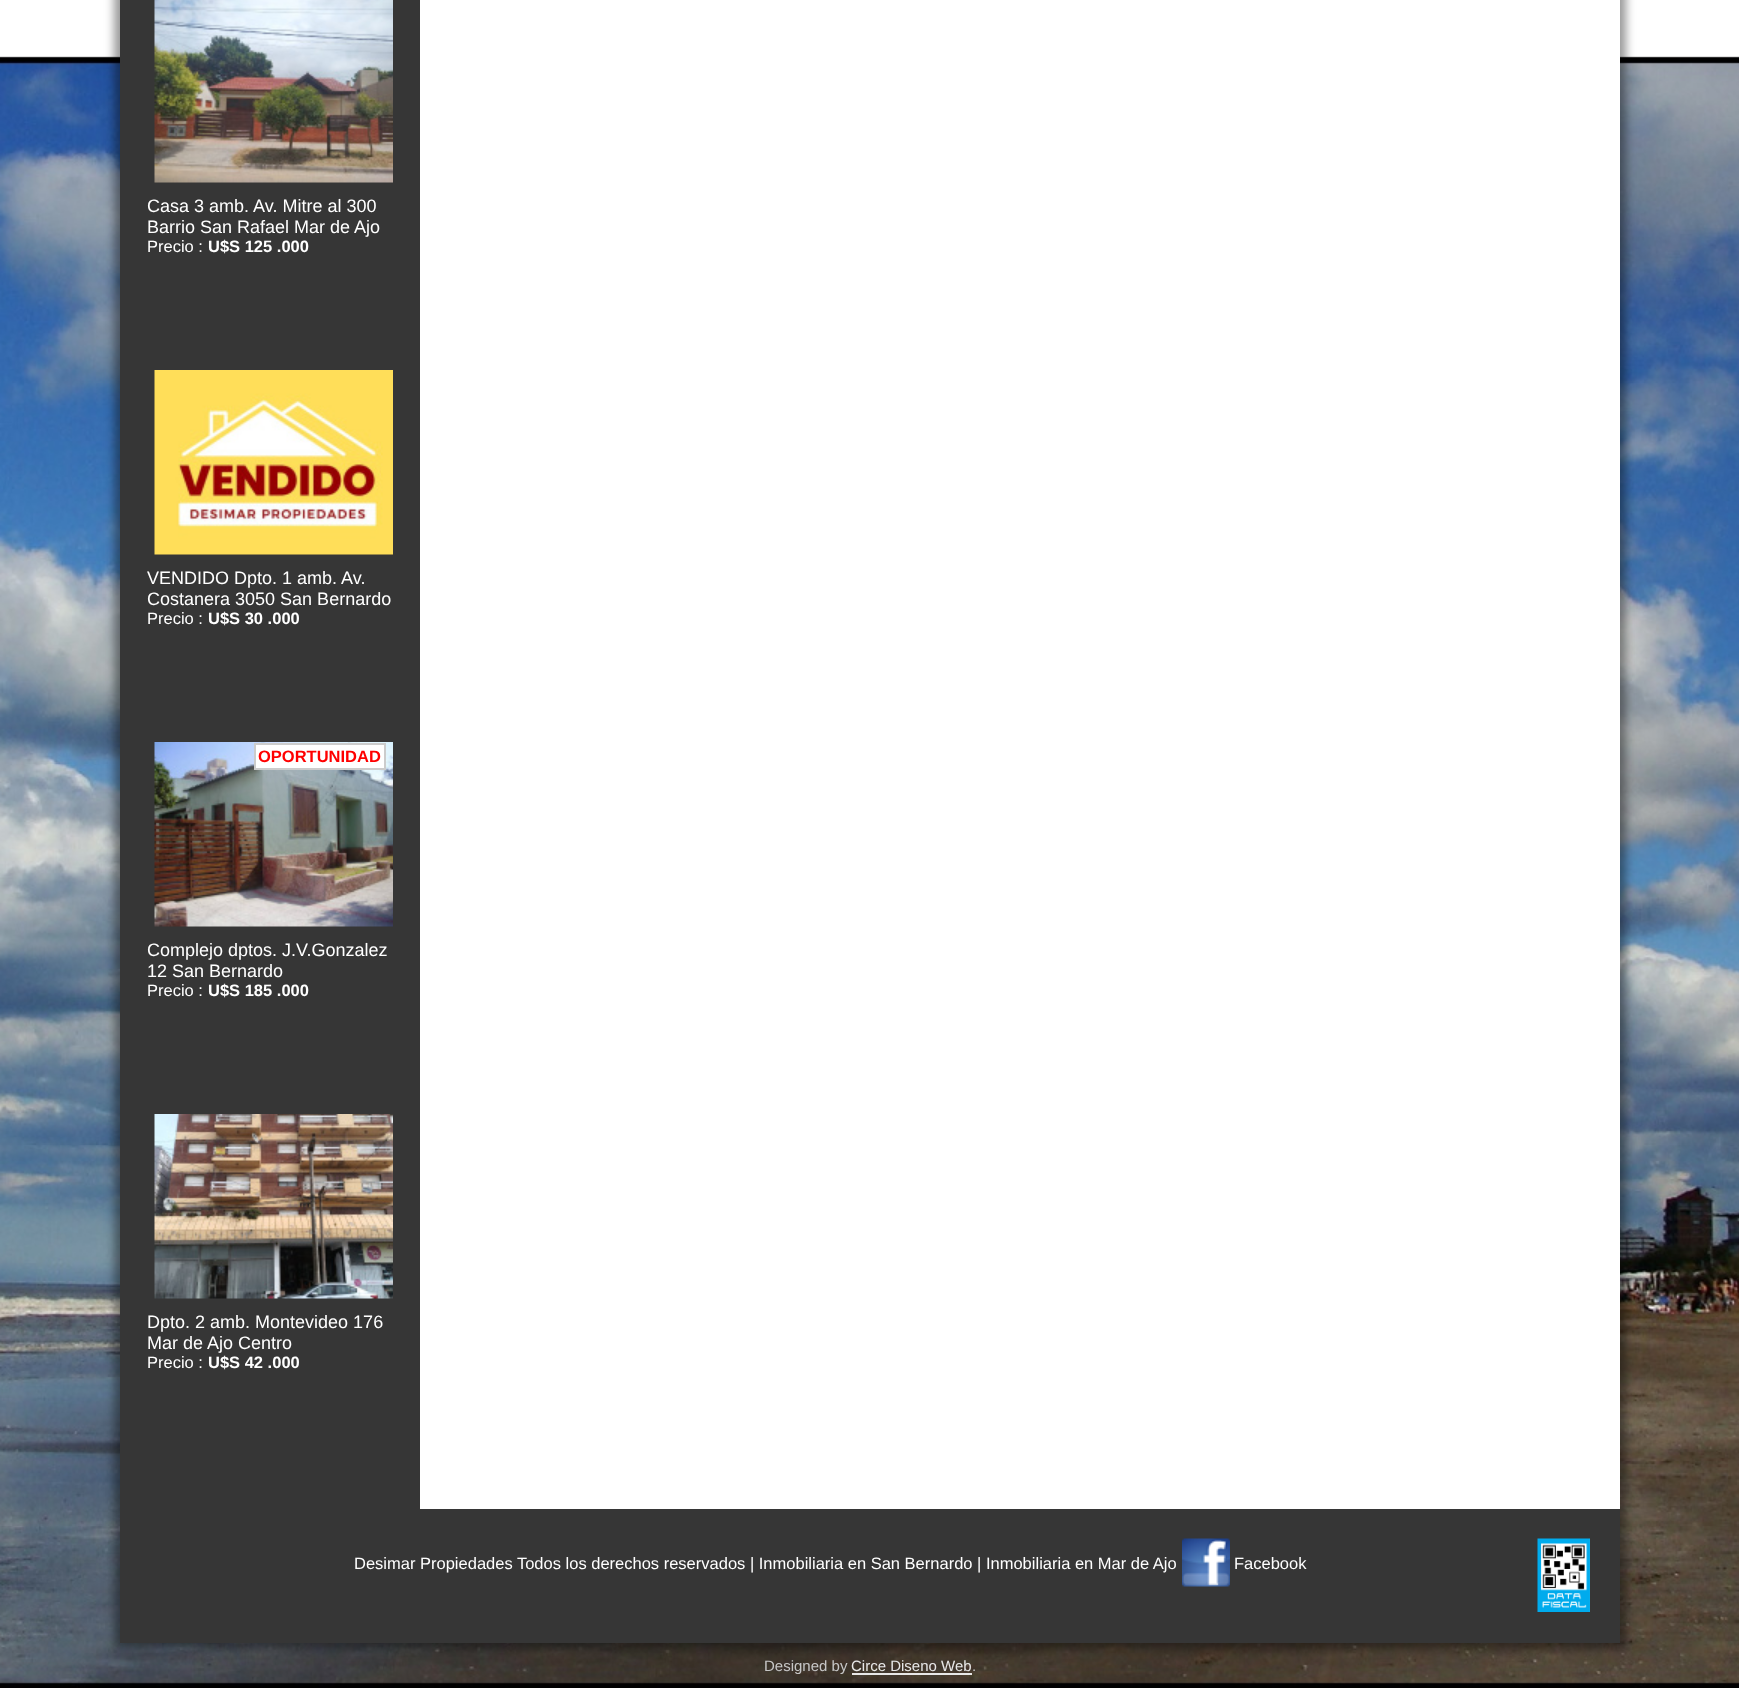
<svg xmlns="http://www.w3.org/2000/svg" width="1739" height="1688">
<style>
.a{font:18px Liberation Sans;fill:#fff}
.b{font:16.5px Liberation Sans;fill:#fff}
.c{font:bold 16.5px Liberation Sans;fill:#fff}
.d{font:bold 16.5px Liberation Sans;fill:#f00}
.e{font:15px Liberation Sans;fill:#c7c7c7}
.f{font:15px Liberation Sans;fill:#e8e8e8}
</style>
<rect width="100%" height="100%" fill="#fff"/>
<image href="1.png" x="0" y="56" width="1739" height="1632"/>
<path fill="#00000066" filter="blur(5px)" d="M114 -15h1512v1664H114z"/>
<path fill="#fff" d="M420 0h1200v1509H420z"/>
<path fill="#363636" d="M120 0h300v1509H120z"/>
<image href="2.png" x="154" y="0" width="239" height="183"/>
<image href="3.png" x="154" y="370" width="239" height="185"/>
<image href="4.png" x="154" y="742" width="239" height="185"/>
<path fill="#fff" stroke="#ccc" stroke-width="2" d="M255 744h130v25H255z"/>
<image href="5.png" x="154" y="1114" width="239" height="185"/>
<path fill="#363636" d="M120 1509h1500v134H120z"/>
<image href="6.png" x="1182" y="1538" width="48" height="49"/>
<image href="7.png" x="1537" y="1538" width="53" height="74"/>
<path fill="#e8e8e8" d="M852 1673h120v2H852z"/>
<text class="a" x="147" y="212">Casa 3 amb. Av. Mitre al 300</text>
<text class="a" x="147" y="233">Barrio San Rafael Mar de Ajo</text>
<text class="b" x="147" y="252">Precio :</text>
<text class="c" x="208" y="252">U$S 125 .000</text>
<text class="a" x="147" y="584">VENDIDO Dpto. 1 amb. Av.</text>
<text class="a" x="147" y="605">Costanera 3050 San Bernardo</text>
<text class="b" x="147" y="624">Precio :</text>
<text class="c" x="208" y="624">U$S 30 .000</text>
<text class="d" x="258" y="762">OPORTUNIDAD</text>
<text class="a" x="147" y="956">Complejo dptos. J.V.Gonzalez</text>
<text class="a" x="147" y="977">12 San Bernardo</text>
<text class="b" x="147" y="996">Precio :</text>
<text class="c" x="208" y="996">U$S 185 .000</text>
<text class="a" x="147" y="1328">Dpto. 2 amb. Montevideo 176</text>
<text class="a" x="147" y="1349">Mar de Ajo Centro</text>
<text class="b" x="147" y="1368">Precio :</text>
<text class="c" x="208" y="1368">U$S 42 .000</text>
<text class="b" x="354" y="1569">Desimar Propiedades Todos los derechos reservados | Inmobiliaria en San Bernardo | Inmobiliaria en Mar de Ajo</text>
<text class="b" x="1234" y="1569">Facebook</text>
<text class="e" x="764" y="1671">Designed by</text>
<text class="f" x="851" y="1671">Circe Diseno Web</text>
<text class="e" x="972" y="1671">.</text>
</svg>
